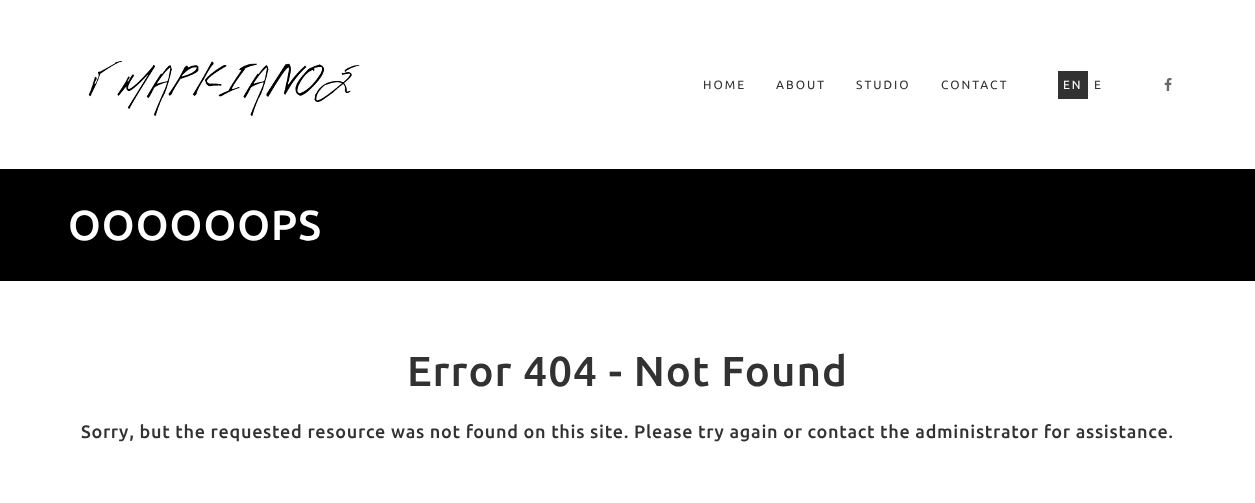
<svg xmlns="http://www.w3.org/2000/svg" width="1255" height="503">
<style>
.a{font:12px Ubuntu;letter-spacing:2px;fill:#323232}
.b{font:12px Ubuntu;letter-spacing:2px;fill:#fff}
.c{font:500 42px Ubuntu;letter-spacing:1px;fill:#fff}
.d{font:500 42px Ubuntu;letter-spacing:1px;fill:#323232}
.e{font:500 18px Ubuntu;letter-spacing:0.7px;fill:#323232}
</style>
<rect width="100%" height="100%" fill="#fff"/>
<image href="1.png" x="88" y="60" width="272" height="56"/>
<path fill="#323232" d="M1058 71h30v28H1058z"/>
<image href="2.png" x="1164" y="78" width="8" height="13"/>
<path fill="#000" d="M0 169h1255v112H0z"/>
<text class="a" x="703" y="89">HOME</text>
<text class="a" x="776" y="89">ABOUT</text>
<text class="a" x="856" y="89">STUDIO</text>
<text class="a" x="941" y="89">CONTACT</text>
<text class="b" x="1063" y="89">EN</text>
<text class="a" x="1094" y="89">Ε</text>
<text class="c" x="68" y="240">OOOOOOPS</text>
<text class="d" x="407" y="386">Error 404 - Not Found</text>
<text class="e" x="81" y="438">Sorry, but the requested resource was not found on this site. Please try again or contact the administrator for assistance.</text>
</svg>
